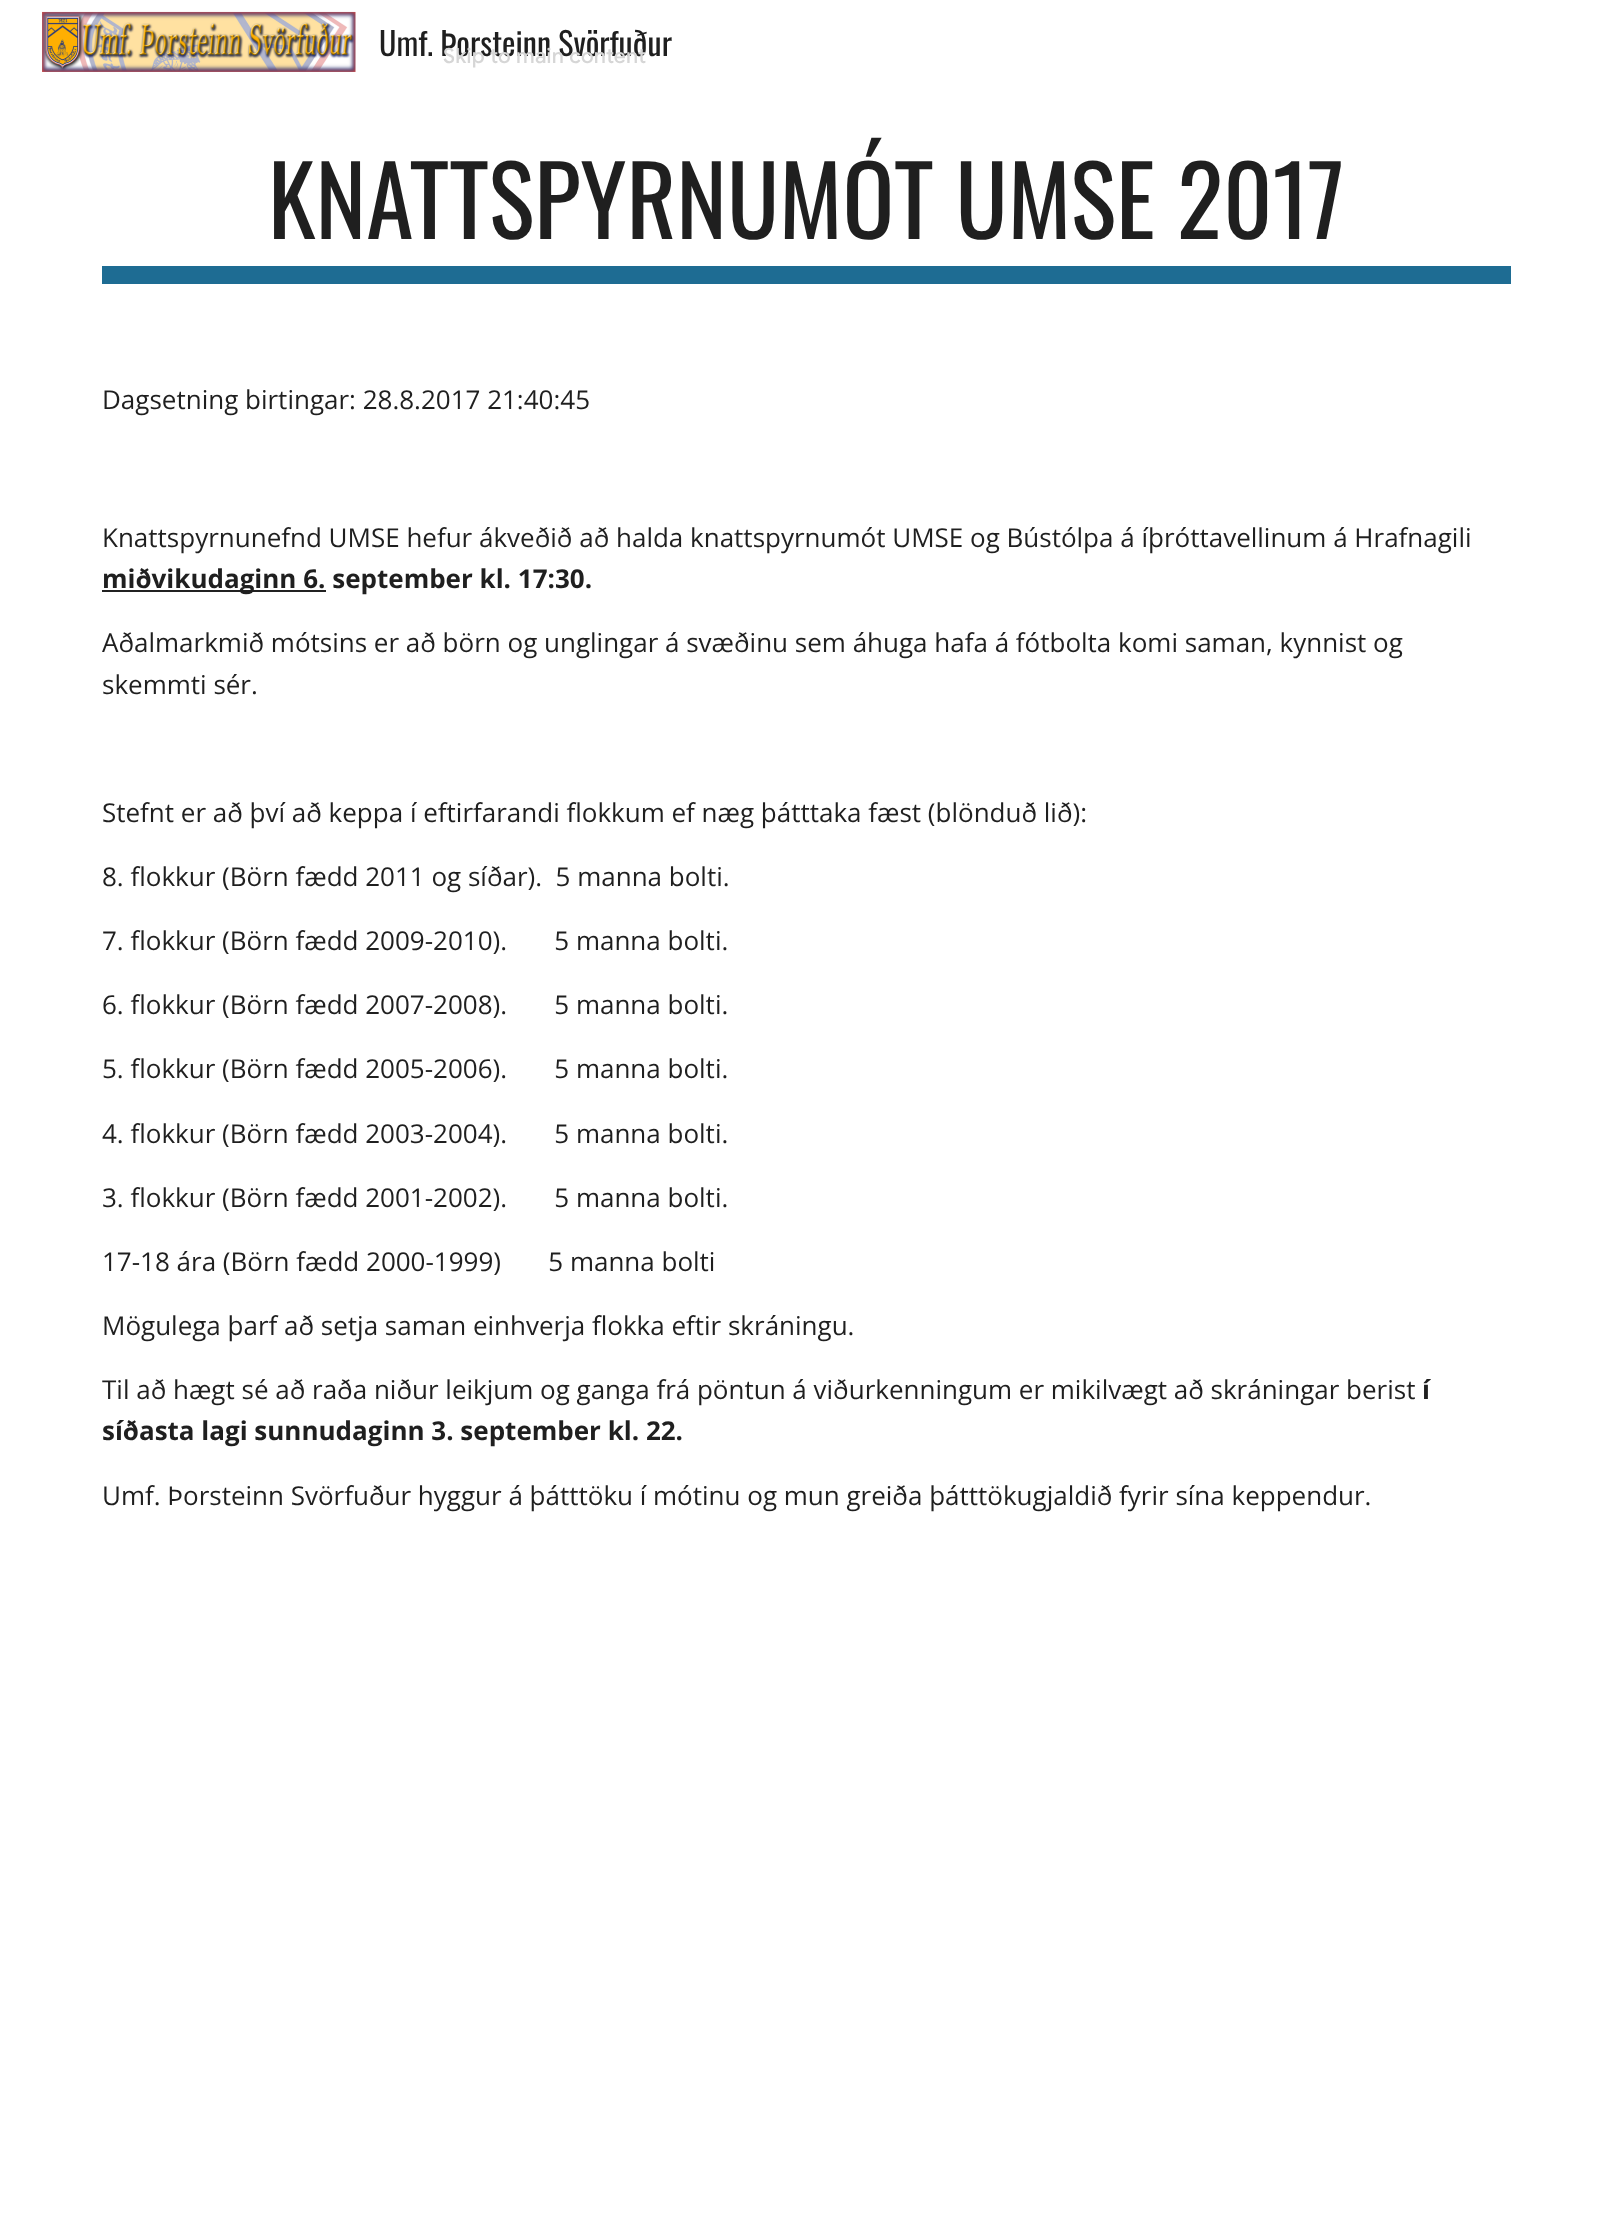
<svg xmlns="http://www.w3.org/2000/svg" width="1612" height="2215">
<style>
.a{font:32px Oswald;fill:#1f1f1f}
.b{font:96px Oswald;fill:#1f1f1f}
.c{font:26px Open Sans;fill:#1f1f1f}
.d{font:bold 26px Open Sans;fill:#1f1f1f}
.e{font:500 21px Google Sans;letter-spacing:0.25px;fill:#d6d6d6}
</style>
<rect width="100%" height="100%" fill="#fff"/>
<image href="1.png" x="42" y="11" width="314" height="61"/>
<path fill="#1e6c93" d="M102 266h1409v18H102z"/>
<path fill="#212121" d="M102 590h224v2H102z"/>
<text class="a" x="379" y="56">Umf. Þorsteinn Svörfuður</text>
<text class="b" x="268" y="239">KNATTSPYRNUMÓT UMSE 2017</text>
<text class="c" x="102" y="409">Dagsetning birtingar: 28.8.2017 21:40:45</text>
<text class="c" x="102" y="547">Knattspyrnunefnd UMSE hefur ákveðið að halda knattspyrnumót UMSE og Bústólpa á íþróttavellinum á Hrafnagili</text>
<text class="d" x="102" y="588">miðvikudaginn 6. september kl. 17:30.</text>
<text class="c" x="102" y="652">Aðalmarkmið mótsins er að börn og unglingar á svæðinu sem áhuga hafa á fótbolta komi saman, kynnist og</text>
<text class="c" x="102" y="694">skemmti sér.</text>
<text class="c" x="102" y="822">Stefnt er að því að keppa í eftirfarandi flokkum ef næg þátttaka fæst (blönduð lið):</text>
<text class="c" xml:space="preserve" x="102" y="886">8. flokkur (Börn fædd 2011 og síðar).  5 manna bolti.</text>
<text class="c" xml:space="preserve" x="102" y="950">7. flokkur (Börn fædd 2009-2010).       5 manna bolti.</text>
<text class="c" xml:space="preserve" x="102" y="1014">6. flokkur (Börn fædd 2007-2008).       5 manna bolti.</text>
<text class="c" xml:space="preserve" x="102" y="1078">5. flokkur (Börn fædd 2005-2006).       5 manna bolti.</text>
<text class="c" xml:space="preserve" x="102" y="1143">4. flokkur (Börn fædd 2003-2004).       5 manna bolti.</text>
<text class="c" xml:space="preserve" x="102" y="1207">3. flokkur (Börn fædd 2001-2002).       5 manna bolti.</text>
<text class="c" xml:space="preserve" x="102" y="1271">17-18 ára (Börn fædd 2000-1999)       5 manna bolti</text>
<text class="c" x="102" y="1335">Mögulega þarf að setja saman einhverja flokka eftir skráningu.</text>
<text class="c" x="102" y="1399">Til að hægt sé að raða niður leikjum og ganga frá pöntun á viðurkenningum er mikilvægt að skráningar berist</text>
<text class="d" x="1422" y="1399">í</text>
<text class="d" x="102" y="1440">síðasta lagi sunnudaginn 3. september kl. 22.</text>
<text class="c" x="102" y="1505">Umf. Þorsteinn Svörfuður hyggur á þátttöku í mótinu og mun greiða þátttökugjaldið fyrir sína keppendur.</text>
<text class="e" x="443" y="63">Skip to main content</text>
</svg>
